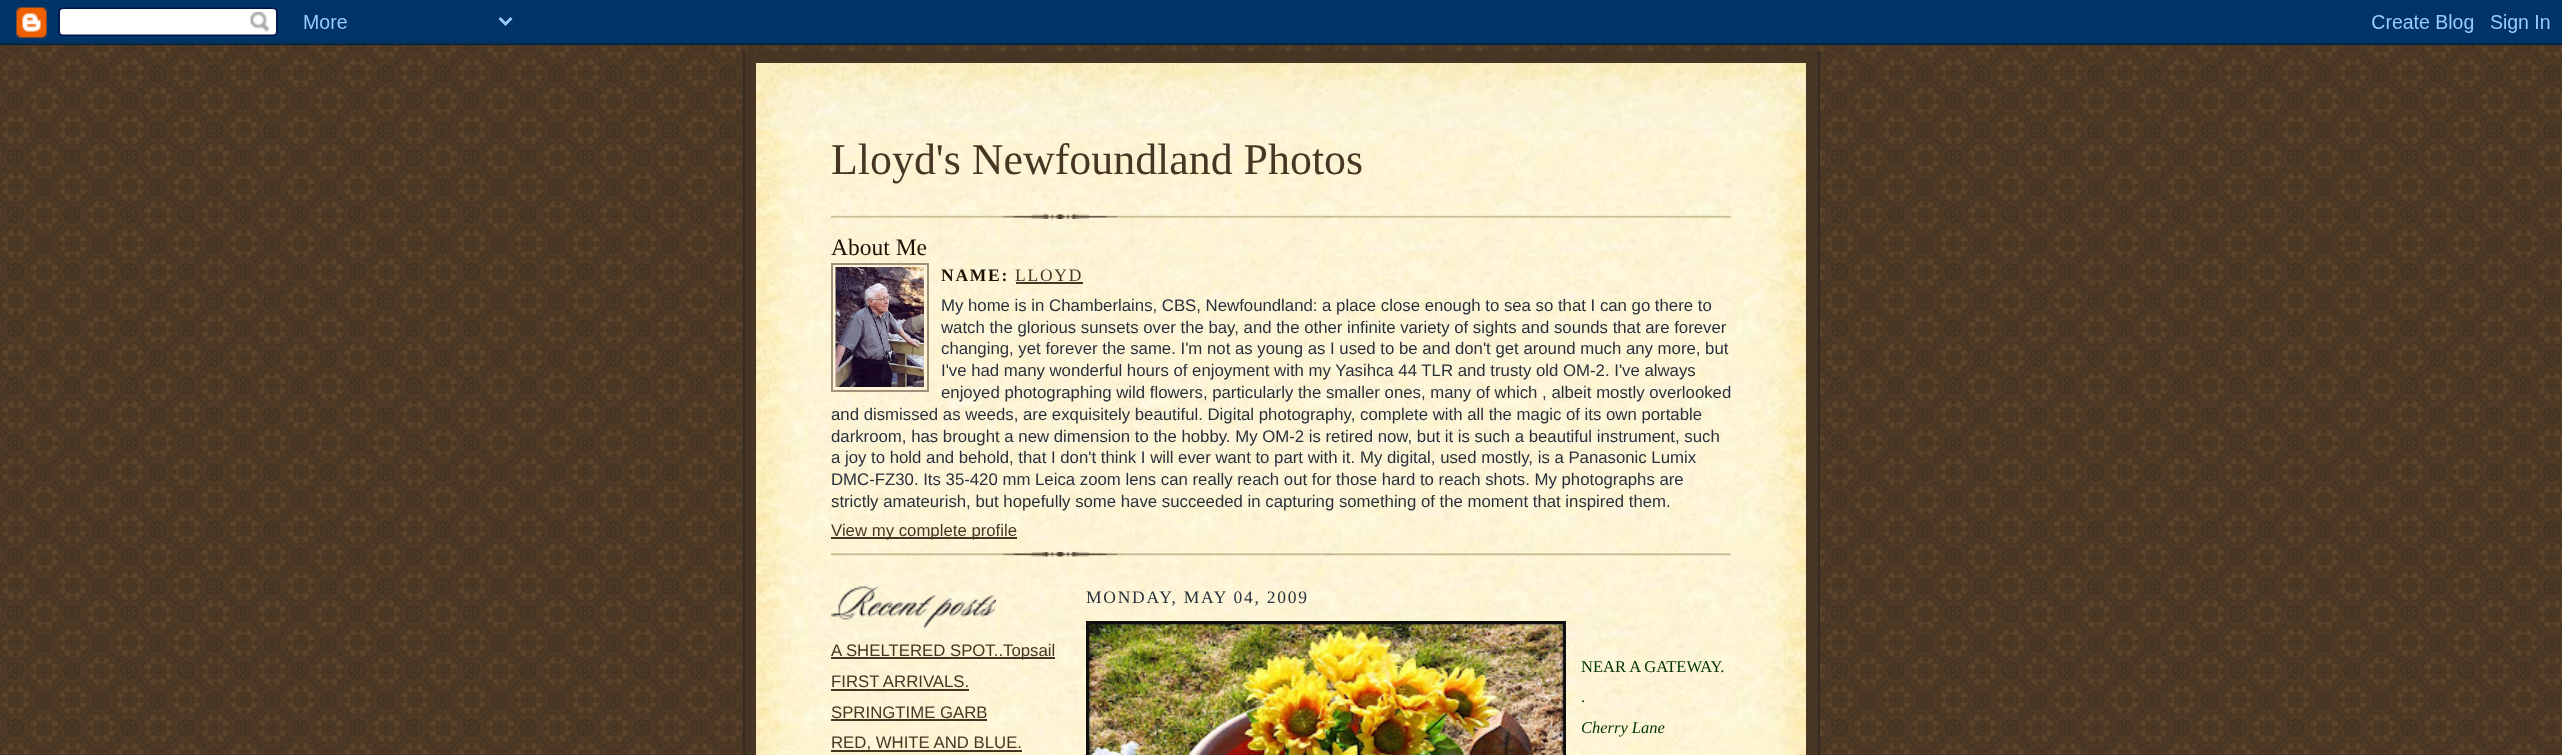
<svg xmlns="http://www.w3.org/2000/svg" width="2562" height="755">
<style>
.a{font:43.9px Liberation Serif;fill:#473624}
.b{font:23.5px Liberation Serif;fill:#211104}
.c{font:bold 17.5px Liberation Serif;letter-spacing:1.75px;fill:#211104}
.d{font:17.5px Liberation Serif;letter-spacing:1.75px;fill:#473624}
.e{font:16.77px Liberation Sans;fill:#29303b}
.f{font:16.77px Liberation Sans;fill:#473624}
.g{font:17.5px Liberation Serif;letter-spacing:1.75px;fill:#29303b}
.h{font:16.5px Liberation Serif;fill:#030}
.i{font:italic 16.5px Liberation Serif;fill:#030}
</style>
<rect width="100%" height="100%" fill="#fff"/>
<image href="1.png" x="0" y="43" width="2562" height="712"/>
<image href="2.png" x="0" y="0" width="2562" height="45"/>
<path fill="#473624" d="M745 51h1073v704H745z"/>
<path fill="#332a24" d="M1818 51h2v704H1818z"/>
<path fill="#332a24" d="M743 51h2v704H743z"/>
<image href="3.png" x="756" y="63" width="1050" height="68"/>
<image href="4.png" x="756" y="130" width="1050" height="625"/>
<image href="5.png" x="831" y="214" width="900" height="5"/>
<path fill="none" stroke="#a2907d" stroke-width="2" d="M832 264h96v127H832z"/>
<image href="6.png" x="835" y="267" width="89" height="120"/>
<path fill="#473624" d="M1016 282h67v2H1016z"/>
<path fill="#473624" d="M831 537h186v2H831z"/>
<image href="7.png" x="831" y="552" width="900" height="5"/>
<image href="8.png" x="831" y="586" width="165" height="43"/>
<path fill="#473624" d="M831 657h224v2H831z"/>
<path fill="#473624" d="M831 689h138v2H831z"/>
<path fill="#473624" d="M831 719h156v2H831z"/>
<path fill="#473624" d="M831 750h191v2H831z"/>
<image href="9.png" x="1086" y="621" width="480" height="134"/>
<text class="a" x="831" y="174">Lloyd's Newfoundland Photos</text>
<text class="b" x="831" y="255">About Me</text>
<text class="c" x="941" y="281">NAME:</text>
<text class="d" x="1015" y="281">LLOYD</text>
<text class="e" x="941" y="311">My home is in Chamberlains, CBS, Newfoundland: a place close enough to sea so that I can go there to</text>
<text class="e" x="941" y="333">watch the glorious sunsets over the bay, and the other infinite variety of sights and sounds that are forever</text>
<text class="e" x="941" y="354">changing, yet forever the same. I'm not as young as I used to be and don't get around much any more, but</text>
<text class="e" x="941" y="376">I've had many wonderful hours of enjoyment with my Yasihca 44 TLR and trusty old OM-2. I've always</text>
<text class="e" x="941" y="398">enjoyed photographing wild flowers, particularly the smaller ones, many of which , albeit mostly overlooked</text>
<text class="e" x="831" y="420">and dismissed as weeds, are exquisitely beautiful. Digital photography, complete with all the magic of its own portable</text>
<text class="e" x="831" y="442">darkroom, has brought a new dimension to the hobby. My OM-2 is retired now, but it is such a beautiful instrument, such</text>
<text class="e" x="831" y="463">a joy to hold and behold, that I don't think I will ever want to part with it.</text>
<text class="e" x="1360" y="463">My digital, used mostly, is a Panasonic Lumix</text>
<text class="e" x="831" y="485">DMC-FZ30. Its 35-420 mm Leica zoom lens can really reach out for those hard to reach shots. My photographs are</text>
<text class="e" x="831" y="507">strictly amateurish, but hopefully some have succeeded in capturing something of the moment that inspired them.</text>
<text class="f" x="831" y="536">View my complete profile</text>
<text class="f" x="831" y="656">A SHELTERED SPOT..Topsail</text>
<text class="f" x="831" y="687">FIRST ARRIVALS.</text>
<text class="f" x="831" y="718">SPRINGTIME GARB</text>
<text class="f" x="831" y="748">RED, WHITE AND BLUE.</text>
<text class="g" x="1086" y="603">MONDAY, MAY 04, 2009</text>
<text class="h" x="1581" y="672">NEAR A GATEWAY.</text>
<text class="h" x="1581" y="702">.</text>
<text class="i" x="1581" y="733">Cherry Lane</text>
</svg>
